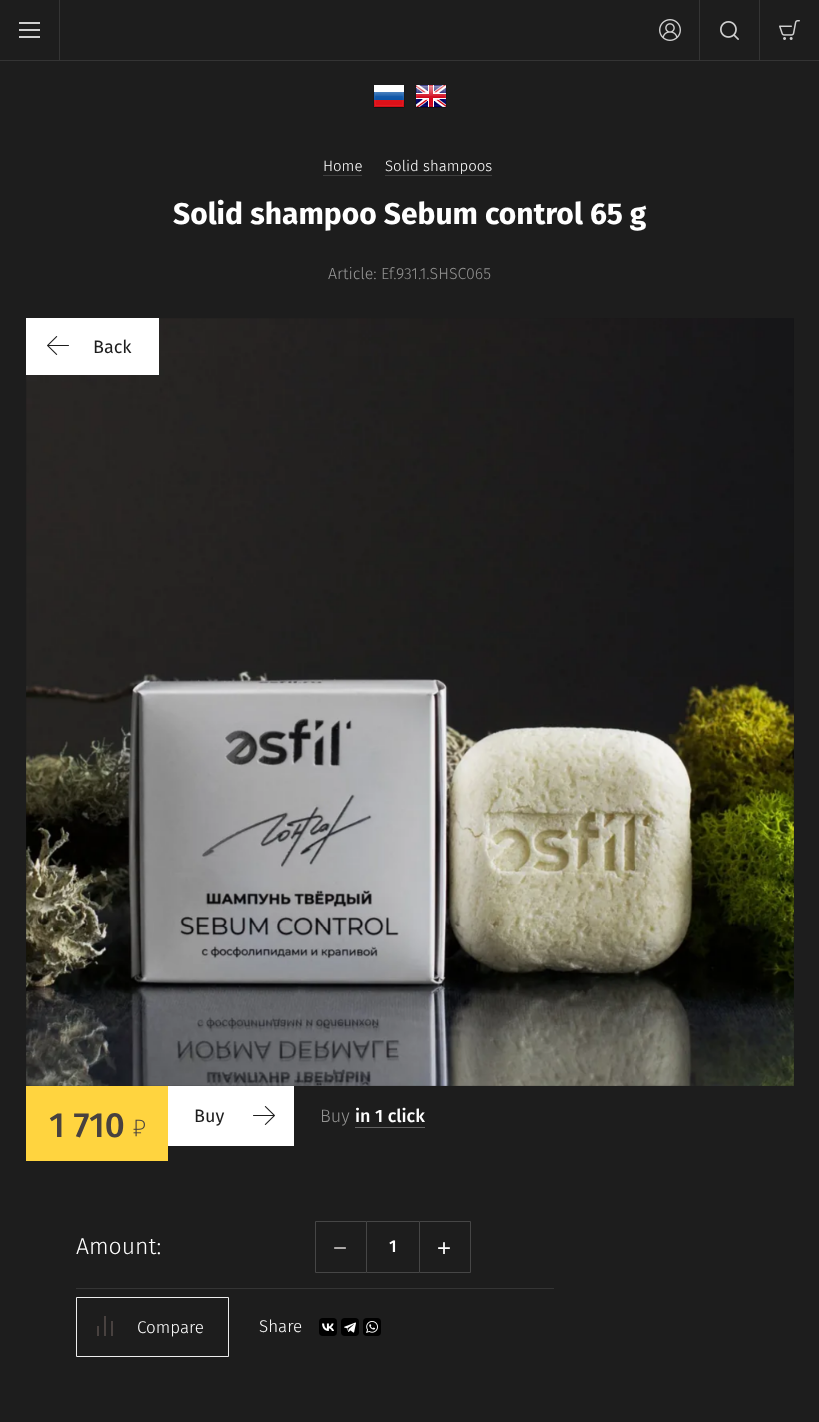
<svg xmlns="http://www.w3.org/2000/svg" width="819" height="1422">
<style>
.a{font:300 15px Fira Sans;fill:#fff}
.b{font:bold 30px Fira Sans;fill:#fff}
.c{font:300 16px Fira Sans;fill:#999}
.d{font:300 16px Fira Sans;fill:#929291}
.e{font:18px Fira Sans;fill:#1d1d1d}
.f{font:500 35px Fira Sans;fill:#48413f}
.g{font:300 18px Fira Sans;fill:#929291}
.h{font:500 18px Fira Sans;fill:#fff}
.i{font:300 23px Fira Sans;fill:#fff}
.j{font:24px Liberation Sans;fill:#c0bdbc}
.k{font:500 17px Fira Sans;fill:#fff}
.l{font:24px Liberation Sans;fill:#fff}
.m{font:300 17px Fira Sans;fill:#fff}
</style>
<rect width="100%" height="100%" fill="#1d1d1d"/>
<path fill="#343434" d="M0 60h819v1H0z"/>
<path fill="#343434" d="M59 0h1v60H59z"/>
<path fill="#d0d0d0" d="M19 22h21v2H19z"/>
<path fill="#d0d0d0" d="M19 29h21v2H19z"/>
<path fill="#d0d0d0" d="M19 36h21v2H19z"/>
<image href="1.png" x="659" y="19" width="22" height="22"/>
<image href="2.png" x="720" y="21" width="19" height="19"/>
<path fill="#343434" d="M699 0h1v60H699z"/>
<path fill="#343434" d="M759 0h1v60H759z"/>
<image href="3.png" x="779" y="20" width="21" height="20"/>
<image href="4.png" x="373" y="85" width="32" height="23"/>
<image href="5.png" x="415" y="85" width="32" height="23"/>
<path fill="#3f3f3f" d="M323 175h39v1H323z"/>
<path fill="#3f3f3f" d="M385 175h107v1H385z"/>
<image href="6.png" x="26" y="318" width="768" height="768"/>
<path fill="#fff" d="M26 318h133v57H26z"/>
<image href="7.png" x="47" y="336" width="22" height="19"/>
<path fill="#ffd43f" d="M26 1086h142v75H26z"/>
<image href="8.png" x="133" y="1119" width="12" height="18"/>
<path fill="#fff" d="M168 1086h126v60H168z"/>
<image href="9.png" x="253" y="1106" width="22" height="19"/>
<path fill="#616161" d="M355 1127h70v1H355z"/>
<path fill="#343434" d="M76 1288h478v1H76z"/>
<path fill="none" stroke="#464646" d="M315.5 1221.5h51v51H315.5z"/>
<path fill="#464646" d="M367 1221h52v1H367z"/>
<path fill="#464646" d="M367 1272h52v1H367z"/>
<path fill="none" stroke="#464646" d="M419.5 1221.5h51v51H419.5z"/>
<image href="10.png" x="97" y="1316" width="16" height="20"/>
<path fill="none" stroke="#ededed" d="M76.5 1297.5h152v59H76.5z"/>
<rect fill="#000" x="319" y="1318" width="18" height="18" rx="4"/>
<image href="11.png" x="322" y="1323" width="12" height="8"/>
<rect fill="#000" x="341" y="1318" width="18" height="18" rx="4"/>
<image href="12.png" x="344" y="1322" width="12" height="11"/>
<rect fill="#000" x="363" y="1318" width="18" height="18" rx="4"/>
<image href="13.png" x="366" y="1321" width="12" height="12"/>
<text class="a" x="323" y="171">Home</text>
<text class="a" x="385" y="171">Solid shampoos</text>
<text class="b" x="173" y="224">Solid shampoo Sebum control 65 g</text>
<text class="c" x="328" y="279">Article:</text>
<text class="d" x="381" y="279">Ef.931.1.SHSC065</text>
<text class="e" x="93" y="353">Back</text>
<text class="f" x="49" y="1137">1 710</text>
<text class="e" x="194" y="1122">Buy</text>
<text class="g" x="320" y="1122">Buy</text>
<text class="h" x="355" y="1122">in 1 click</text>
<text class="i" x="76" y="1254">Amount:</text>
<text class="j" x="333" y="1256">−</text>
<text class="k" x="389" y="1252">1</text>
<text class="l" x="437" y="1256">+</text>
<text class="m" x="137" y="1333">Compare</text>
<text class="m" x="259" y="1332">Share</text>
</svg>
